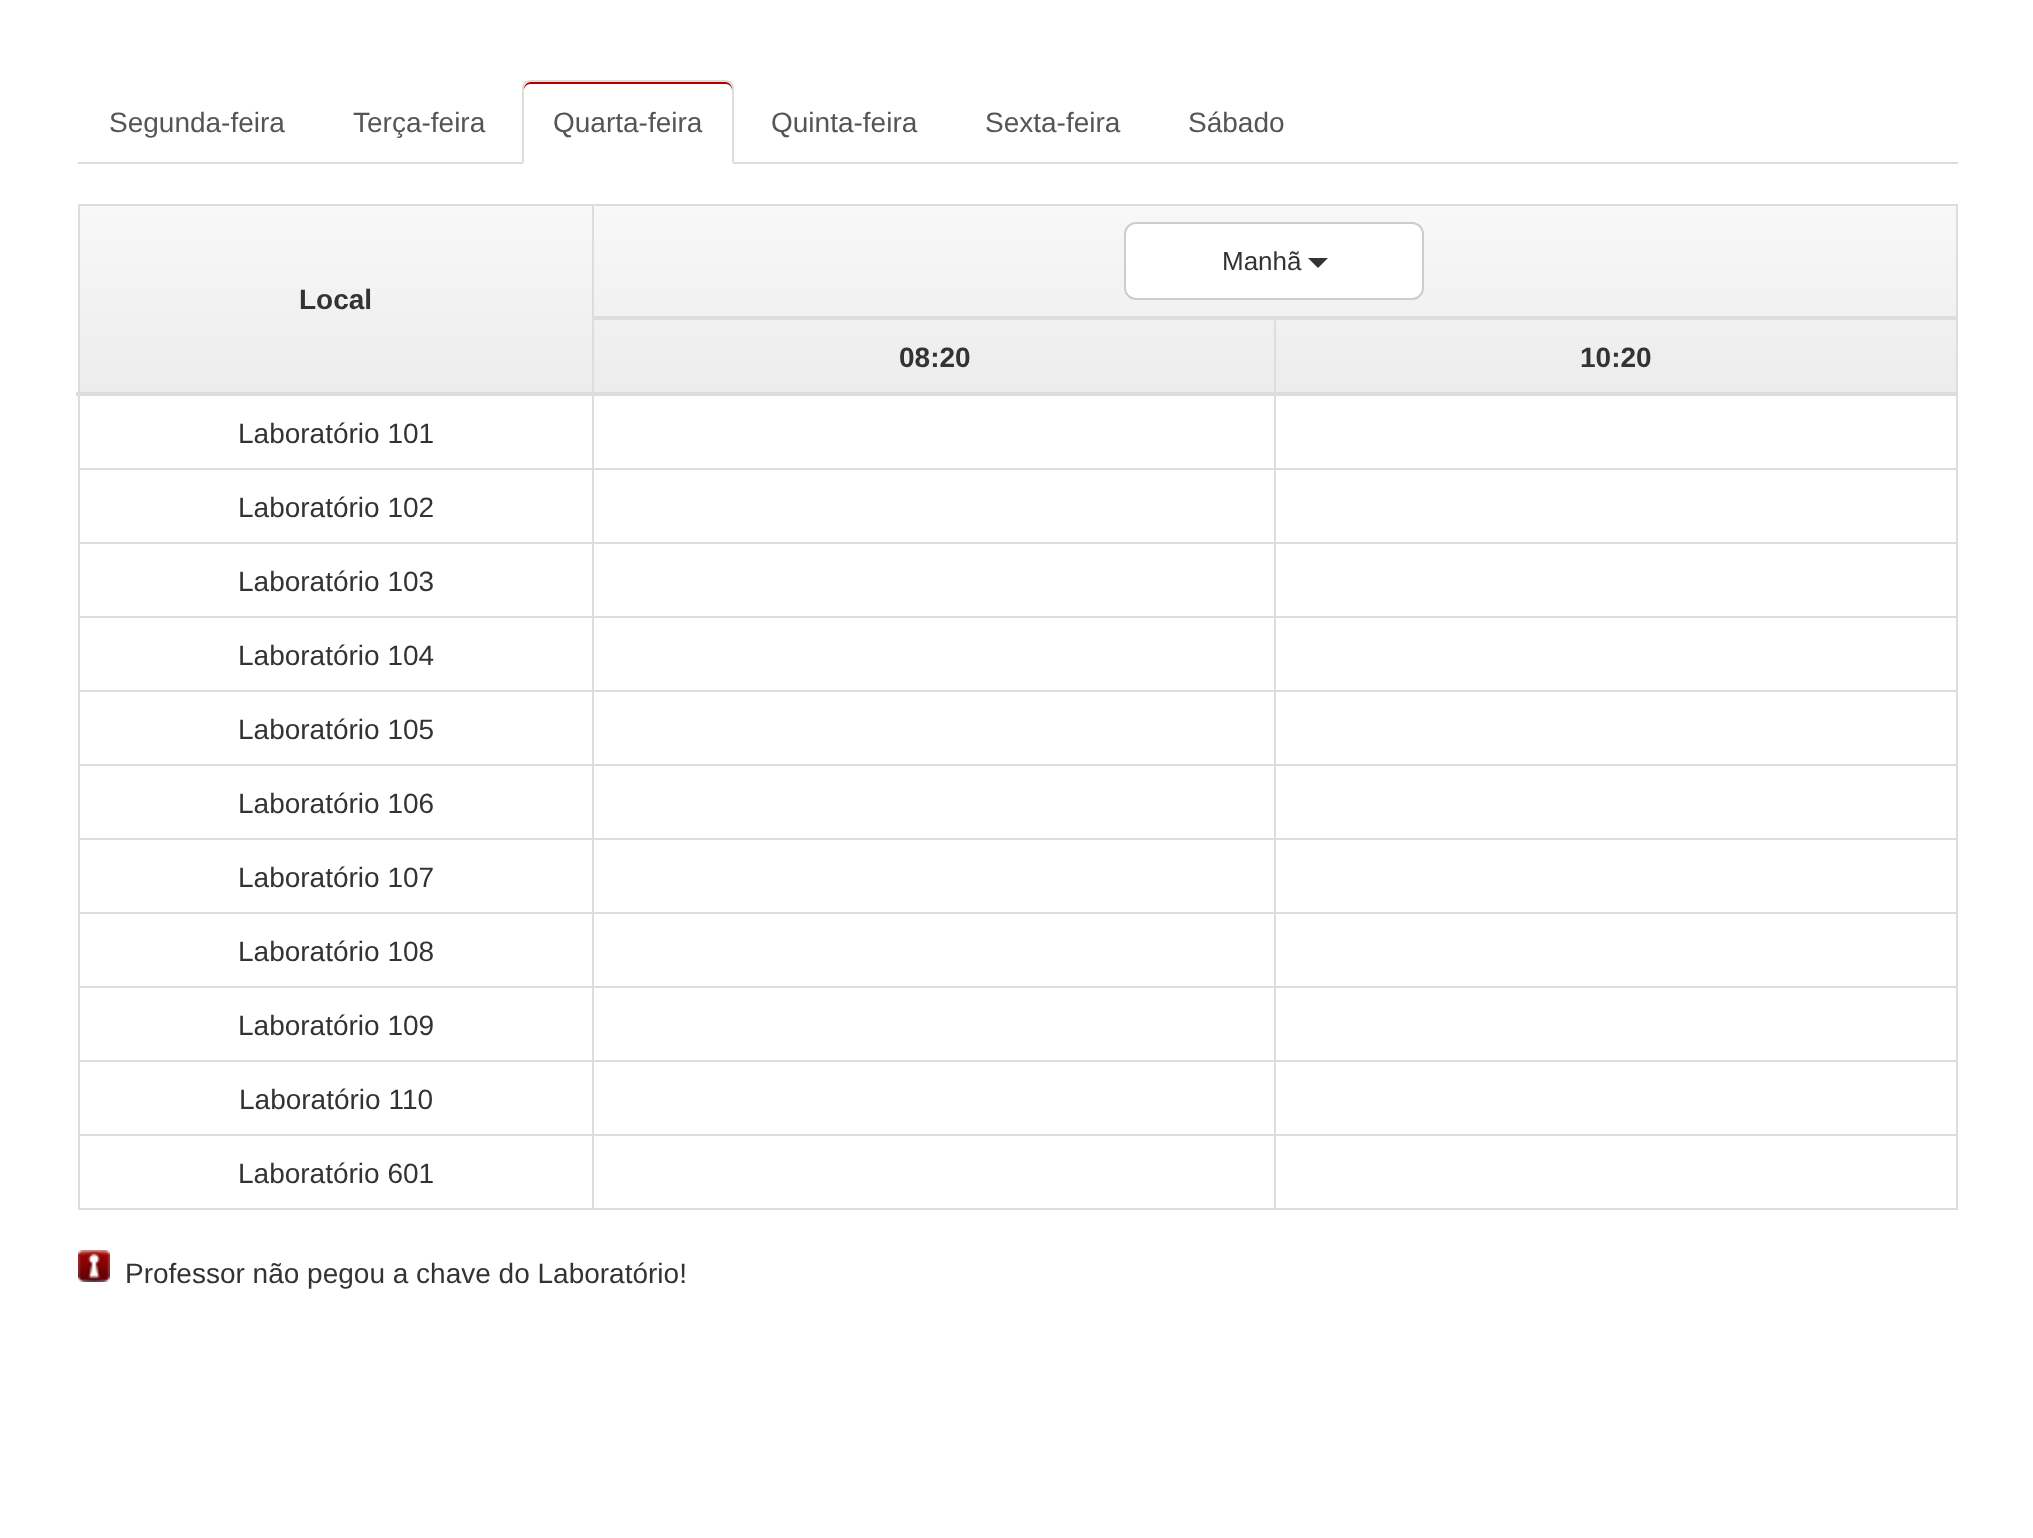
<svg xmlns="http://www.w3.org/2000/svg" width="2033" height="1538">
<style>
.a{font:28px Liberation Sans;fill:#555}
.b{font:26px Liberation Sans;fill:#333}
.c{font:bold 28px Liberation Sans;fill:#333}
.d{font:28px Liberation Sans;fill:#333}
</style>
<defs>
<linearGradient id="g1" gradientUnits="userSpaceOnUse" x1="1017" y1="206" x2="1017" y2="394"><stop offset="0" stop-color="#f8f8f8"/><stop offset="1" stop-color="#ececec"/></linearGradient>
</defs>
<rect width="100%" height="100%" fill="#fff"/>
<path fill="#ddd" d="M78 162h1880v2H78z"/>
<path fill="#fff" d="M530 80h196c4.5 0 8 3.5 8 8v76h-212v-76c0-4.5 3.5-8 8-8z"/>
<path fill="#b00000" d="M530 84h196c3 0 6 3 6 6v-2c0-3-3-6-6-6h-196c-3 0-6 3-6 6v2c0-3 3-6 6-6z"/>
<path fill="#ddd" d="M530 80c-2 0-4 1-6 2l2 2c1-1 2-2 4-2h196c2 0 3 1 4 2l2-2c-2-1-4-2-6-2z"/>
<path fill="#ddd" d="M734 164v-76c0-2-1-4-2-6l-2 2l2 3v75z"/>
<path fill="#ddd" d="M522 164l2-2v-75l2-3l-2-2c-1 2-2 4-2 6z"/>
<path fill="#ddd" d="M78 204h1880v2H78z"/>
<path fill="#ddd" d="M1956 204h2v1006H1956z"/>
<path fill="#ddd" d="M78 1208h1880v2H78z"/>
<path fill="#ddd" d="M78 204h2v1006H78z"/>
<path fill="url(#g1)" d="M80 206h1876v186H80z"/>
<path fill="#ddd" d="M1274 468h684v2H1274z"/>
<path fill="#ddd" d="M1274 542h684v2H1274z"/>
<path fill="#ddd" d="M1274 616h684v2H1274z"/>
<path fill="#ddd" d="M1274 690h684v2H1274z"/>
<path fill="#ddd" d="M1274 764h684v2H1274z"/>
<path fill="#ddd" d="M1274 838h684v2H1274z"/>
<path fill="#ddd" d="M1274 912h684v2H1274z"/>
<path fill="#ddd" d="M1274 986h684v2H1274z"/>
<path fill="#ddd" d="M1274 1060h684v2H1274z"/>
<path fill="#ddd" d="M1274 1134h684v2H1274z"/>
<path fill="#ddd" d="M1274 1134h2v76H1274z"/>
<path fill="#ddd" d="M592 1134h684v2H592z"/>
<path fill="#ddd" d="M1274 1060h2v76H1274z"/>
<path fill="#ddd" d="M592 1060h684v2H592z"/>
<path fill="#ddd" d="M1274 986h2v76H1274z"/>
<path fill="#ddd" d="M592 986h684v2H592z"/>
<path fill="#ddd" d="M1274 912h2v76H1274z"/>
<path fill="#ddd" d="M592 912h684v2H592z"/>
<path fill="#ddd" d="M1274 838h2v76H1274z"/>
<path fill="#ddd" d="M592 838h684v2H592z"/>
<path fill="#ddd" d="M1274 764h2v76H1274z"/>
<path fill="#ddd" d="M592 764h684v2H592z"/>
<path fill="#ddd" d="M1274 690h2v76H1274z"/>
<path fill="#ddd" d="M592 690h684v2H592z"/>
<path fill="#ddd" d="M1274 616h2v76H1274z"/>
<path fill="#ddd" d="M592 616h684v2H592z"/>
<path fill="#ddd" d="M1274 542h2v76H1274z"/>
<path fill="#ddd" d="M592 542h684v2H592z"/>
<path fill="#ddd" d="M1274 468h2v76H1274z"/>
<path fill="#ddd" d="M592 468h684v2H592z"/>
<path fill="#ddd" d="M592 1134h2v76H592z"/>
<path fill="#ddd" d="M78 1134h516v2H78z"/>
<path fill="#ddd" d="M592 1060h2v76H592z"/>
<path fill="#ddd" d="M78 1060h516v2H78z"/>
<path fill="#ddd" d="M592 986h2v76H592z"/>
<path fill="#ddd" d="M78 986h516v2H78z"/>
<path fill="#ddd" d="M592 912h2v76H592z"/>
<path fill="#ddd" d="M78 912h516v2H78z"/>
<path fill="#ddd" d="M592 838h2v76H592z"/>
<path fill="#ddd" d="M78 838h516v2H78z"/>
<path fill="#ddd" d="M592 764h2v76H592z"/>
<path fill="#ddd" d="M78 764h516v2H78z"/>
<path fill="#ddd" d="M592 690h2v76H592z"/>
<path fill="#ddd" d="M78 690h516v2H78z"/>
<path fill="#ddd" d="M592 616h2v76H592z"/>
<path fill="#ddd" d="M78 616h516v2H78z"/>
<path fill="#ddd" d="M592 542h2v76H592z"/>
<path fill="#ddd" d="M78 542h516v2H78z"/>
<path fill="#ddd" d="M592 468h2v76H592z"/>
<path fill="#ddd" d="M78 468h516v2H78z"/>
<path fill="#ddd" d="M592 204h2v266H592z"/>
<path fill="#ddd" d="M1274 318h2v152H1274z"/>
<path fill="#ddd" d="M592 316h1366v4H592z"/>
<rect fill="#fff" stroke="#ccc" stroke-width="2" x="1125" y="223" width="298" height="76" rx="11"/>
<path fill="#333" d="M1308 258h20l-10 10z"/>
<path fill="#ddd" d="M76 392h1882v4H76z"/>
<image href="1.png" x="78" y="1250" width="32" height="32"/>
<text class="a" x="109" y="132">Segunda-feira</text>
<text class="a" x="353" y="132">Terça-feira</text>
<text class="a" x="553" y="132">Quarta-feira</text>
<text class="a" x="771" y="132">Quinta-feira</text>
<text class="a" x="985" y="132">Sexta-feira</text>
<text class="a" x="1188" y="132">Sábado</text>
<text class="b" x="1222" y="270">Manhã</text>
<text class="c" x="299" y="309">Local</text>
<text class="c" x="899" y="367">08:20</text>
<text class="c" x="1580" y="367">10:20</text>
<text class="d" x="238" y="443">Laboratório 101</text>
<text class="d" x="238" y="517">Laboratório 102</text>
<text class="d" x="238" y="591">Laboratório 103</text>
<text class="d" x="238" y="665">Laboratório 104</text>
<text class="d" x="238" y="739">Laboratório 105</text>
<text class="d" x="238" y="813">Laboratório 106</text>
<text class="d" x="238" y="887">Laboratório 107</text>
<text class="d" x="238" y="961">Laboratório 108</text>
<text class="d" x="238" y="1035">Laboratório 109</text>
<text class="d" x="239" y="1109">Laboratório 110</text>
<text class="d" x="238" y="1183">Laboratório 601</text>
<text class="d" x="125" y="1283">Professor não pegou a chave do Laboratório!</text>
</svg>
